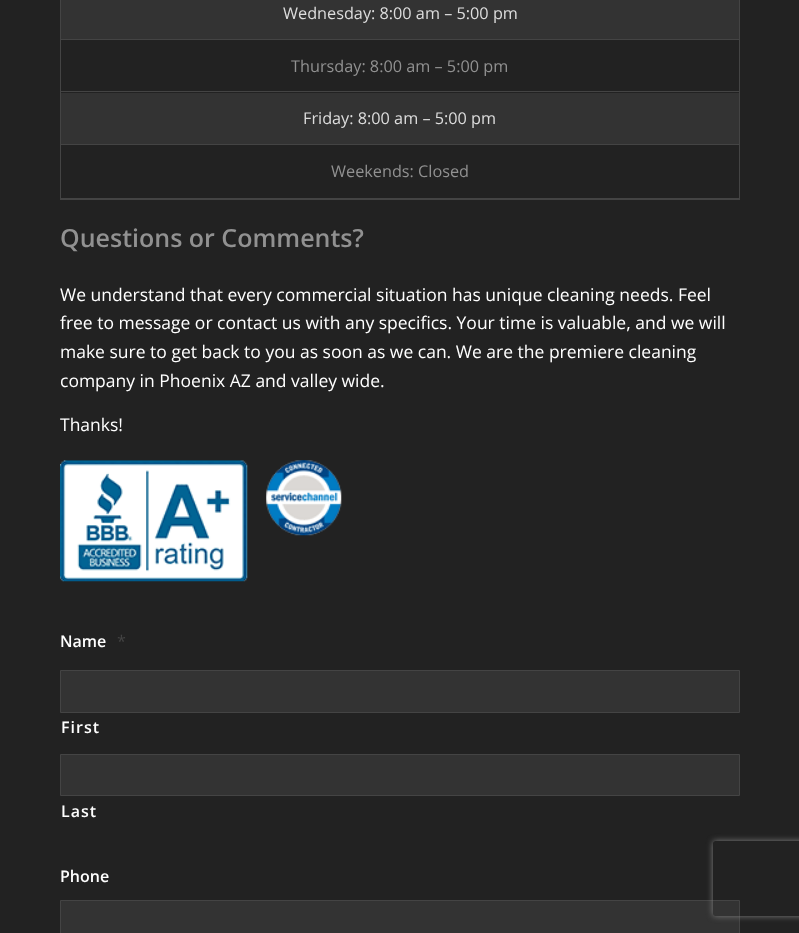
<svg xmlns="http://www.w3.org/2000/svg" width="799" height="933">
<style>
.a{font:16.25px Open Sans;fill:#ddd}
.b{font:16.25px Open Sans;fill:#919191}
.c{font:600 25px Open Sans;fill:#919191}
.d{font:17.5px Open Sans;fill:#fff}
.e{font:600 16px Open Sans;fill:#fff}
.f{font:16.25px Open Sans;fill:#444}
.g{font:600 16px Open Sans;letter-spacing:1px;fill:#fff}
</style>
<defs>
<clipPath id="clip1"><path d="M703 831h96v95h-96zm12.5 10h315c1.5 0 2.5 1 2.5 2.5v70c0 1.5-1 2.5-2.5 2.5h-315c-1.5 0-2.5-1-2.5-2.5v-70c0-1.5 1-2.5 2.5-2.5z" clip-rule="evenodd"/></clipPath>
</defs>
<rect width="100%" height="100%" fill="#222"/>
<path fill="#333" d="M61 0h678v144H61z"/>
<path fill="#444" d="M739 0h1v200H739z"/>
<path fill="#444" d="M60 199h680v1H60z"/>
<path fill="#444" d="M60 0h1v200H60z"/>
<path fill="#444" d="M61 39h678v1H61z"/>
<path fill="#222" d="M61 40h678v53H61z"/>
<path fill="#444" d="M61 91h678v1H61z"/>
<path fill="#444" d="M61 144h678v1H61z"/>
<path fill="#444" d="M61 198h678v1H61z"/>
<image href="1.png" x="60" y="460" width="188" height="122"/>
<image href="2.png" x="266" y="460" width="76" height="76"/>
<path fill="#333" stroke="#444" d="M60.5 670.5h679v42H60.5z"/>
<path fill="#333" stroke="#444" d="M60.5 754.5h679v41H60.5z"/>
<path fill="#333" stroke="#444" d="M60.5 900.5h679v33H60.5z"/>
<g clip-path="url(#clip1)">
<rect fill="#808080" filter="blur(3px)" x="713" y="841" width="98" height="75" rx="2.5"/>
</g>
<text class="a" x="283" y="19">Wednesday: 8:00 am – 5:00 pm</text>
<text class="b" x="291" y="72">Thursday: 8:00 am – 5:00 pm</text>
<text class="a" x="303" y="124">Friday: 8:00 am – 5:00 pm</text>
<text class="b" x="331" y="177">Weekends: Closed</text>
<text class="c" x="60" y="247">Questions or Comments?</text>
<text class="d" x="60" y="301">We understand that every commercial situation has unique cleaning needs. Feel</text>
<text class="d" x="60" y="329">free to message or contact us with any specifics. Your time is valuable, and we will</text>
<text class="d" x="60" y="358">make sure to get back to you as soon as we can. We are the premiere cleaning</text>
<text class="d" x="60" y="387">company in Phoenix AZ and valley wide.</text>
<text class="d" x="60" y="431">Thanks!</text>
<text class="e" x="60" y="647">Name</text>
<text class="f" x="117" y="647">*</text>
<text class="g" x="61" y="733">First</text>
<text class="g" x="61" y="817">Last</text>
<text class="e" x="60" y="882">Phone</text>
</svg>
